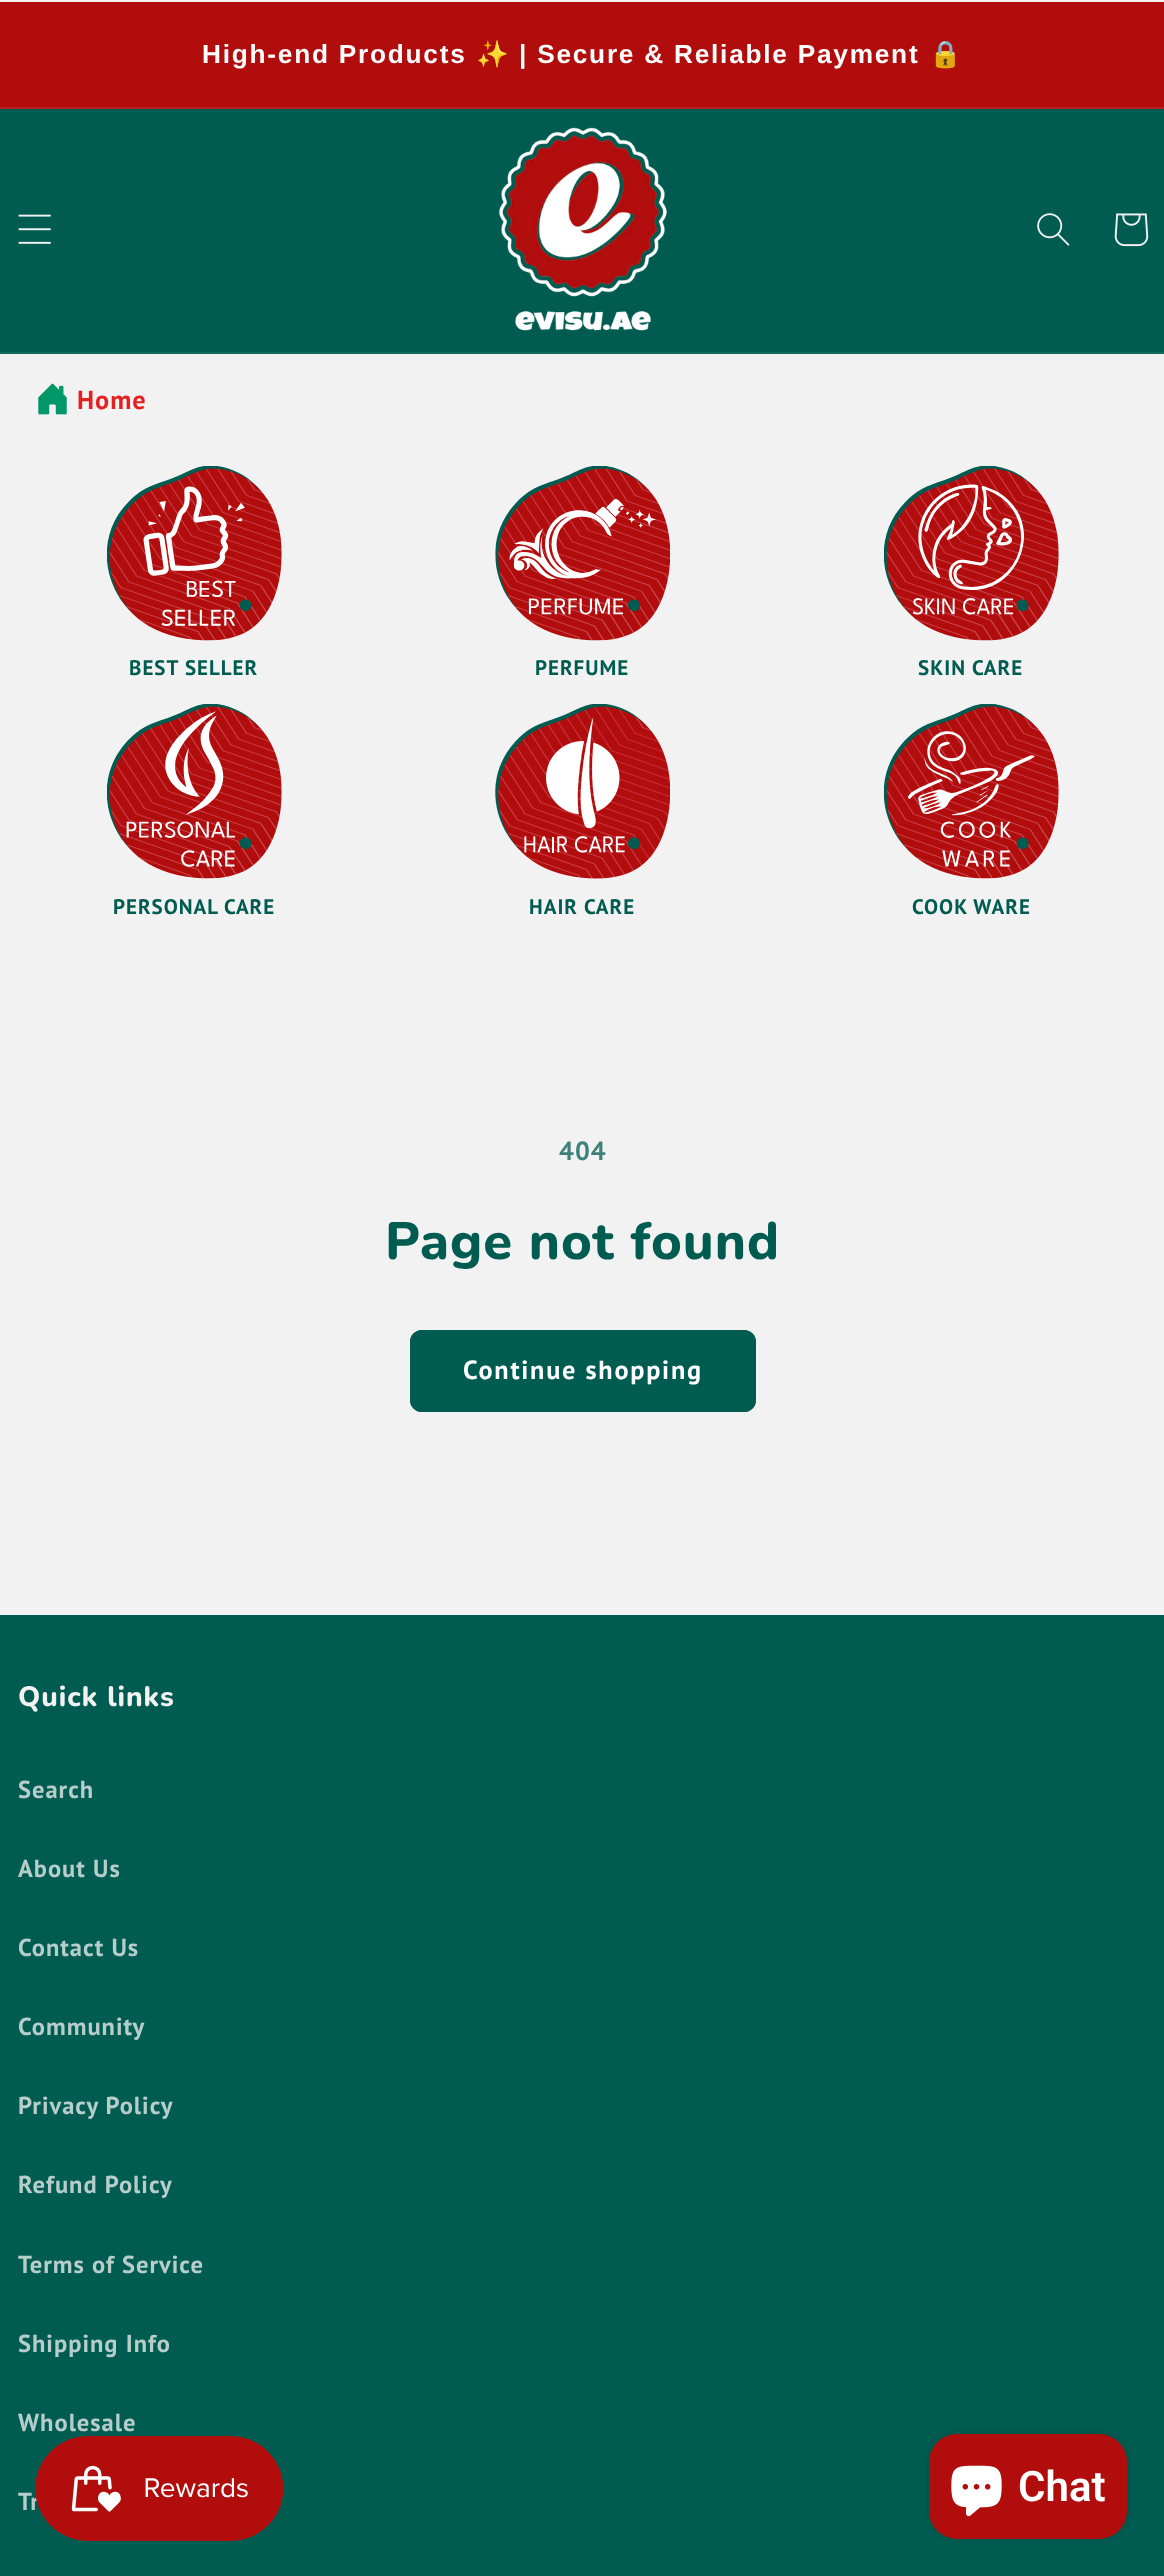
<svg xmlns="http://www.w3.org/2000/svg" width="1164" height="2576">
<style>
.a{font:bold 26.25px Liberation Sans;letter-spacing:1.75px;fill:#fff}
.b{font:bold 26.25px Noto Color Emoji;letter-spacing:1.75px;fill:#fff}
.c{font:bold 26.25px PT Sans;letter-spacing:1px;fill:#e22120}
.d{font:bold 21px PT Sans;letter-spacing:1px;fill:#005c51}
.e{font:bold 26.25px PT Sans;letter-spacing:1px;fill:#3d8279}
.f{font:800 52.5px Nunito;letter-spacing:1px;fill:#005c51}
.g{font:bold 26.25px PT Sans;letter-spacing:1.75px;fill:#fff}
.h{font:800 28px Nunito;letter-spacing:1px;fill:#f2f2f2}
.i{font:bold 24.5px PT Sans;letter-spacing:1px;fill:#b6cdca}
.j{font:600 42px Roboto;fill:#fff}
</style>
<rect width="100%" height="100%" fill="#f2f2f2"/>
<path fill="#b10d0d" d="M0 2h1164v105H0z"/>
<path fill="#b72020" d="M0 107h1164v2H0z"/>
<path fill="#005c51" d="M0 109h1164v243H0z"/>
<path fill="#13685e" d="M0 352h1164v2H0z"/>
<image href="1.png" x="18" y="214" width="33" height="30"/>
<image href="2.png" x="499" y="127" width="168" height="204"/>
<image href="3.png" x="1037" y="213" width="33" height="33"/>
<image href="4.png" x="1114" y="213" width="35" height="34"/>
<image href="5.png" x="38" y="383" width="29" height="32"/>
<image href="6.png" x="107" y="466" width="175" height="175"/>
<image href="7.png" x="495" y="466" width="175" height="175"/>
<image href="8.png" x="884" y="466" width="175" height="175"/>
<image href="9.png" x="107" y="704" width="175" height="175"/>
<image href="10.png" x="495" y="704" width="175" height="175"/>
<image href="11.png" x="884" y="704" width="175" height="175"/>
<rect fill="#005c51" x="410" y="1330" width="346" height="82" rx="12"/>
<rect fill="none" stroke="#005c51" stroke-width="2" x="411" y="1331" width="344" height="80" rx="11"/>
<path fill="#005c51" d="M0 1615h1164v961H0z"/>
<rect fill="#00000026" filter="blur(4.5px)" x="929" y="2434" width="198" height="105" rx="28"/>
<rect fill="#b10d0d" x="929" y="2434" width="198" height="105" rx="28"/>
<image href="13.png" x="951" y="2465" width="51" height="52"/>
<text class="a" x="202" y="63">High-end Products</text>
<text class="b" x="476" y="63">✨</text>
<text class="a" x="519" y="63">| Secure &amp; Reliable Payment</text>
<text class="b" x="929" y="63">🔒</text>
<text class="c" x="77" y="409">Home</text>
<text class="d" x="129" y="675">BEST SELLER</text>
<text class="d" x="535" y="675">PERFUME</text>
<text class="d" x="918" y="675">SKIN CARE</text>
<text class="d" x="113" y="914">PERSONAL CARE</text>
<text class="d" x="529" y="914">HAIR CARE</text>
<text class="d" x="912" y="914">COOK WARE</text>
<text class="e" x="559" y="1160">404</text>
<text class="f" x="385" y="1259">Page not found</text>
<text class="g" x="463" y="1379">Continue shopping</text>
<text class="h" x="18" y="1706">Quick links</text>
<text class="i" x="18" y="1798">Search</text>
<text class="i" x="18" y="1877">About Us</text>
<text class="i" x="18" y="1956">Contact Us</text>
<text class="i" x="18" y="2035">Community</text>
<text class="i" x="18" y="2114">Privacy Policy</text>
<text class="i" x="18" y="2193">Refund Policy</text>
<text class="i" x="18" y="2273">Terms of Service</text>
<text class="i" x="18" y="2352">Shipping Info</text>
<text class="i" x="18" y="2431">Wholesale</text>
<text class="i" x="18" y="2510">Tr</text>
<image href="12.png" x="35" y="2436" width="249" height="105"/>
<text class="j" x="1018" y="2501">Chat</text>
</svg>
